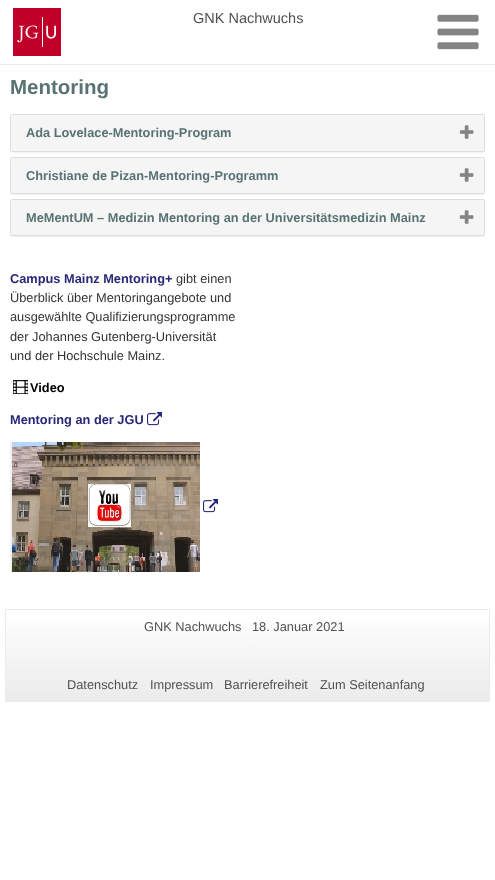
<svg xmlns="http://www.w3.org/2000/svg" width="495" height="880">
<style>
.a{font:14.5px Liberation Sans;fill:#515151}
.b{font:bold 20.5px Liberation Sans;fill:#597273}
.c{font:bold 12.8px Liberation Sans;fill:#597273}
.d{font:bold 12.8px Liberation Sans;fill:#282879}
.e{font:12.8px Liberation Sans;fill:#333}
.f{font:bold 12.8px Liberation Sans;fill:#000}
.g{font:12.8px Liberation Sans;fill:#515151}
</style>
<defs>
<linearGradient id="g1" gradientUnits="userSpaceOnUse" x1="248" y1="701" x2="248" y2="610"><stop offset="0" stop-color="#ebebeb"/><stop offset="1" stop-color="#fff"/></linearGradient>
</defs>
<rect width="100%" height="100%" fill="#fff"/>
<path fill="#ebebeb" d="M0 64h495v1H0z"/>
<image href="1.png" x="13" y="8" width="48" height="48"/>
<image href="2.png" x="437" y="14" width="42" height="36"/>
<rect fill="#0000000d" filter="blur(0.5px)" x="10" y="115" width="475" height="38" rx="2"/>
<rect fill="#fff" stroke="#ddd" x="10.5" y="114.5" width="474" height="37" rx="1.5"/>
<path fill="#f5f5f5" d="M14 115h467c1.5 0 3 1.5 3 3v33h-473v-33c0-1.5 1.5-3 3-3z"/>
<image href="3.png" x="459" y="125" width="15" height="14"/>
<rect fill="#0000000d" filter="blur(0.5px)" x="10" y="158" width="475" height="37" rx="2"/>
<rect fill="#fff" stroke="#ddd" x="10.5" y="157.5" width="474" height="36" rx="1.5"/>
<path fill="#f5f5f5" d="M14 158h467c1.5 0 3 1.5 3 3v32h-473v-32c0-1.5 1.5-3 3-3z"/>
<image href="3.png" x="459" y="168" width="15" height="14"/>
<rect fill="#0000000d" filter="blur(0.5px)" x="10" y="200" width="475" height="37" rx="2"/>
<rect fill="#fff" stroke="#ddd" x="10.5" y="199.5" width="474" height="36" rx="1.5"/>
<path fill="#f5f5f5" d="M14 200h467c1.5 0 3 1.5 3 3v32h-473v-32c0-1.5 1.5-3 3-3z"/>
<image href="3.png" x="459" y="210" width="15" height="14"/>
<image href="4.png" x="13" y="380" width="15" height="14"/>
<image href="5.png" x="147" y="412" width="15" height="14"/>
<image href="6.png" x="10" y="442" width="190" height="130"/>
<image href="5.png" x="203" y="499" width="15" height="14"/>
<path fill="url(#g1)" d="M6 621h483v80H6z"/>
<path fill="none" stroke="#ebebeb" d="M5.5 609.5h484v92H5.5z"/>
<text class="a" x="193" y="23">GNK Nachwuchs</text>
<text class="b" x="10" y="94">Mentoring</text>
<text class="c" x="26" y="137">Ada Lovelace-Mentoring-Program</text>
<text class="c" x="26" y="180">Christiane de Pizan-Mentoring-Programm</text>
<text class="c" x="26" y="222">MeMentUM – Medizin Mentoring an der Universitätsmedizin Mainz</text>
<text class="d" x="10" y="283">Campus Mainz Mentoring+</text>
<text class="e" x="176" y="283">gibt einen</text>
<text class="e" x="10" y="302">Überblick über Mentoringangebote und</text>
<text class="e" x="10" y="321">ausgewählte Qualifizierungsprogramme</text>
<text class="e" x="10" y="341">der Johannes Gutenberg-Universität</text>
<text class="e" x="10" y="360">und der Hochschule Mainz.</text>
<text class="f" x="30" y="392">Video</text>
<text class="d" x="10" y="424">Mentoring an der JGU</text>
<text class="g" x="144" y="631">GNK Nachwuchs</text>
<text class="g" x="252" y="631">18. Januar 2021</text>
<text class="g" x="67" y="689">Datenschutz</text>
<text class="g" x="150" y="689">Impressum</text>
<text class="g" x="224" y="689">Barrierefreiheit</text>
<text class="g" x="320" y="689">Zum Seitenanfang</text>
</svg>
